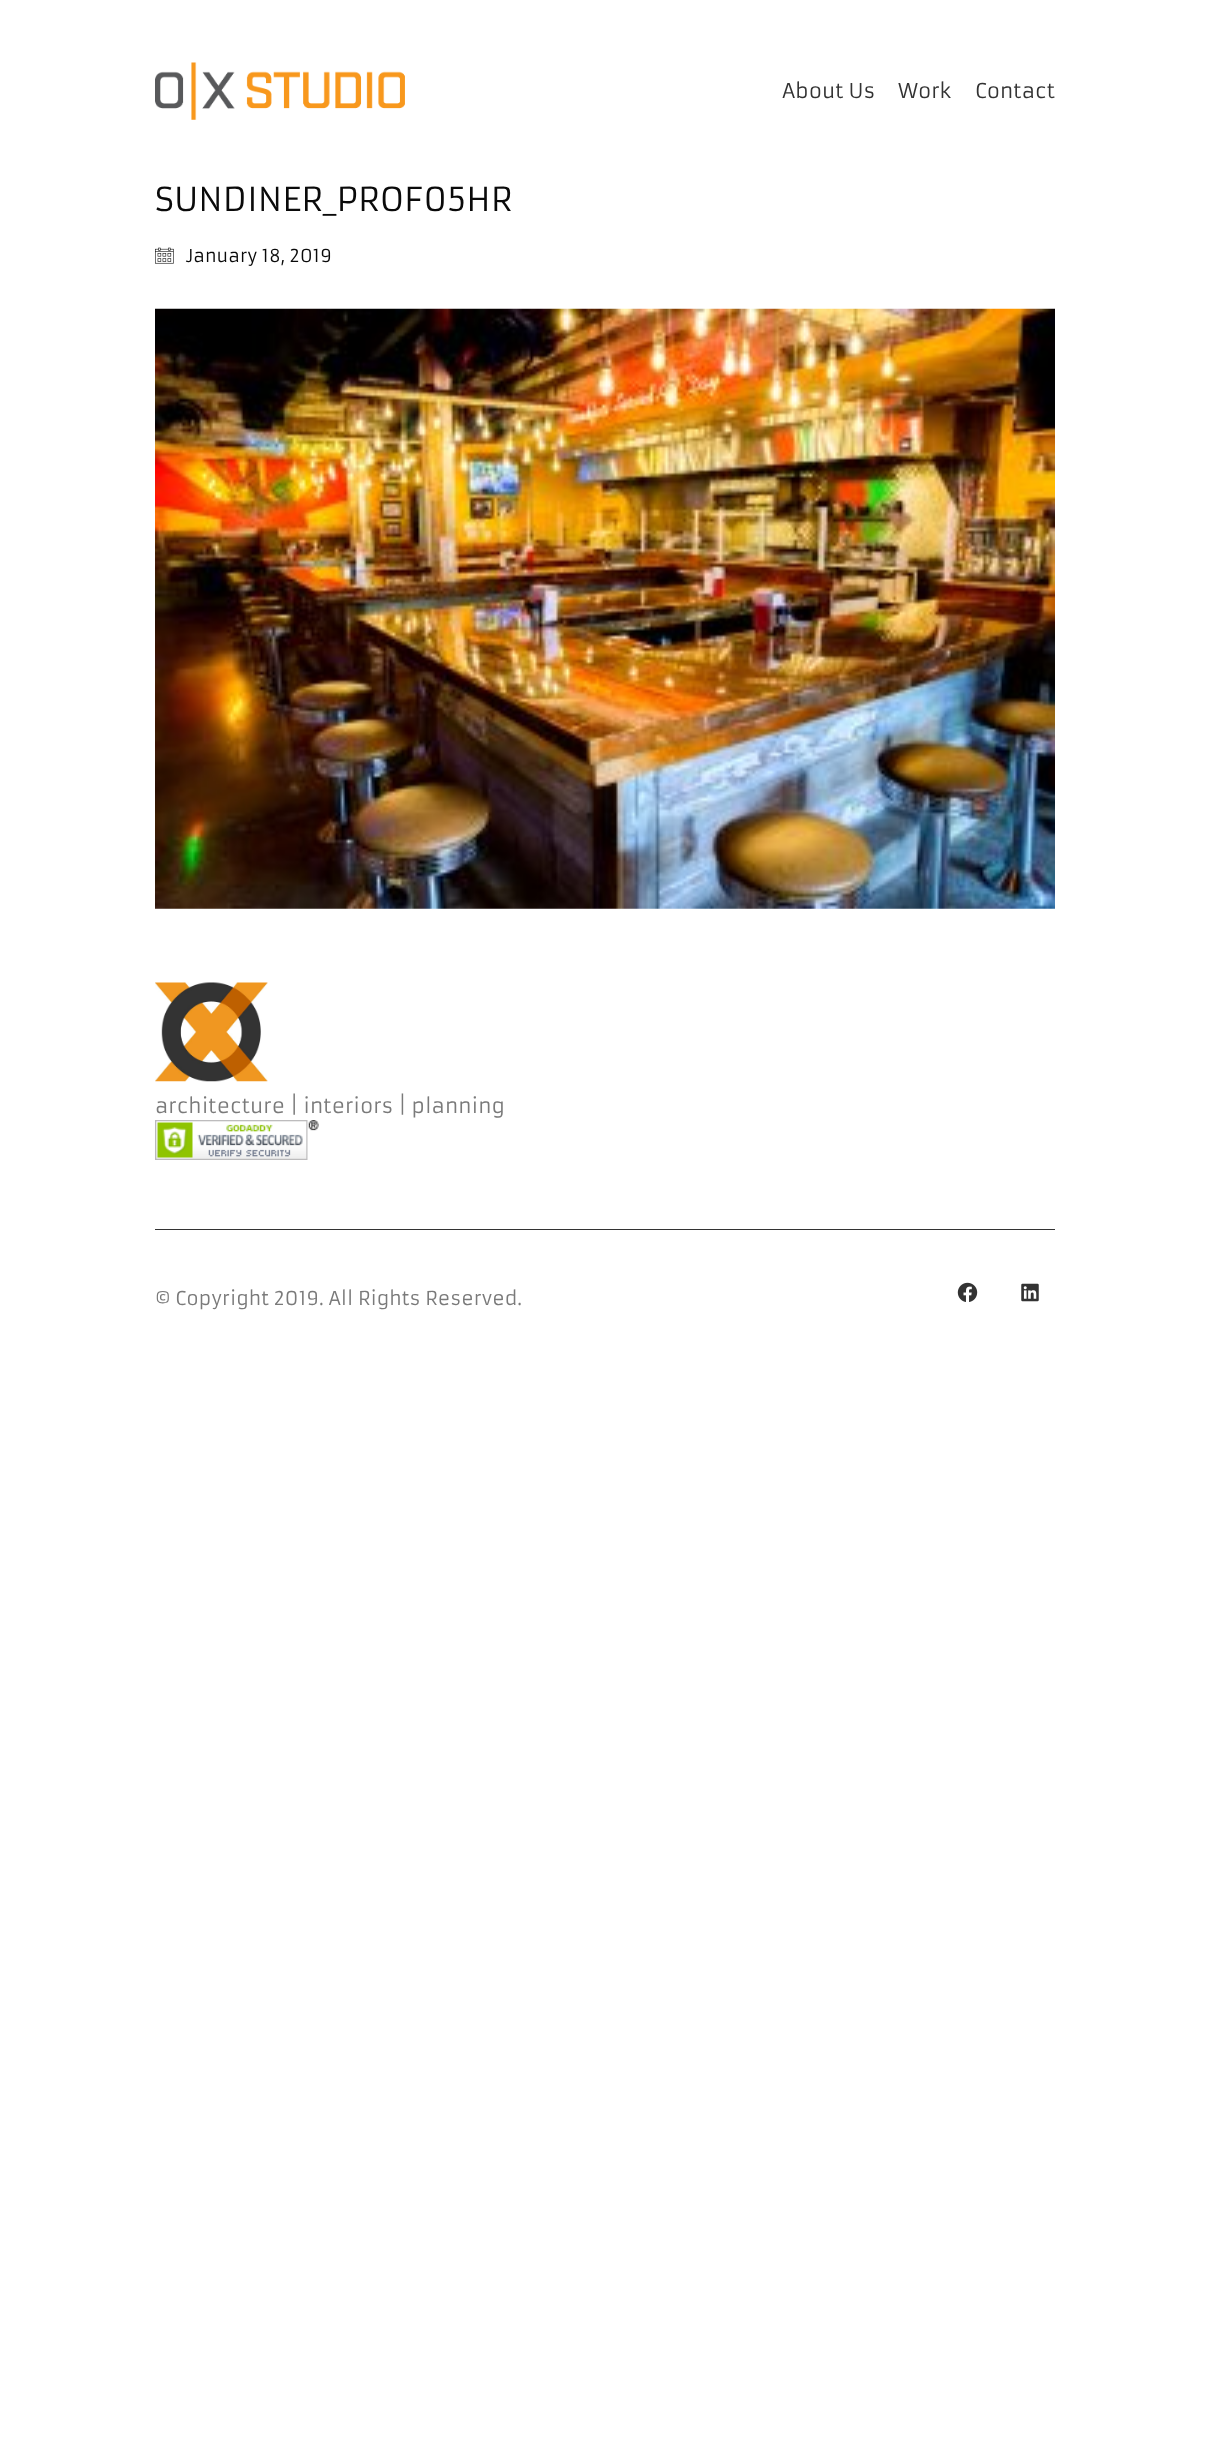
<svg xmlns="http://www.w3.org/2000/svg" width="1210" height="2450">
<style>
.a{font:20px Armata;fill:#333}
.b{font:32.5px Armata;fill:#0a0a0a}
.c{font:17.5px Armata;fill:#0a0a0a}
.d{font:20px Armata;fill:#7a7a7a}
.e{font:18.75px Armata;fill:#7a7a7a}
</style>
<rect width="100%" height="100%" fill="#fff"/>
<image href="1.png" x="155" y="62" width="250" height="58"/>
<image href="2.png" x="155" y="247" width="19" height="17"/>
<image href="3.png" x="155" y="308" width="900" height="601"/>
<image href="4.png" x="155" y="982" width="113" height="100"/>
<image href="5.png" x="155" y="1120" width="164" height="40"/>
<path fill="#333" d="M155 1229h900v1H155z"/>
<image href="6.png" x="957" y="1282" width="21" height="20"/>
<image href="7.png" x="1021" y="1283" width="18" height="19"/>
<text class="a" x="782" y="98">About Us</text>
<text class="a" x="898" y="98">Work</text>
<text class="a" x="975" y="98">Contact</text>
<text class="b" x="155" y="211">SUNDINER_PROF05HR</text>
<text class="c" x="186" y="262">January 18, 2019</text>
<text class="d" x="155" y="1113">architecture | interiors | planning</text>
<text class="e" x="155" y="1305">© Copyright 2019. All Rights Reserved.</text>
</svg>
